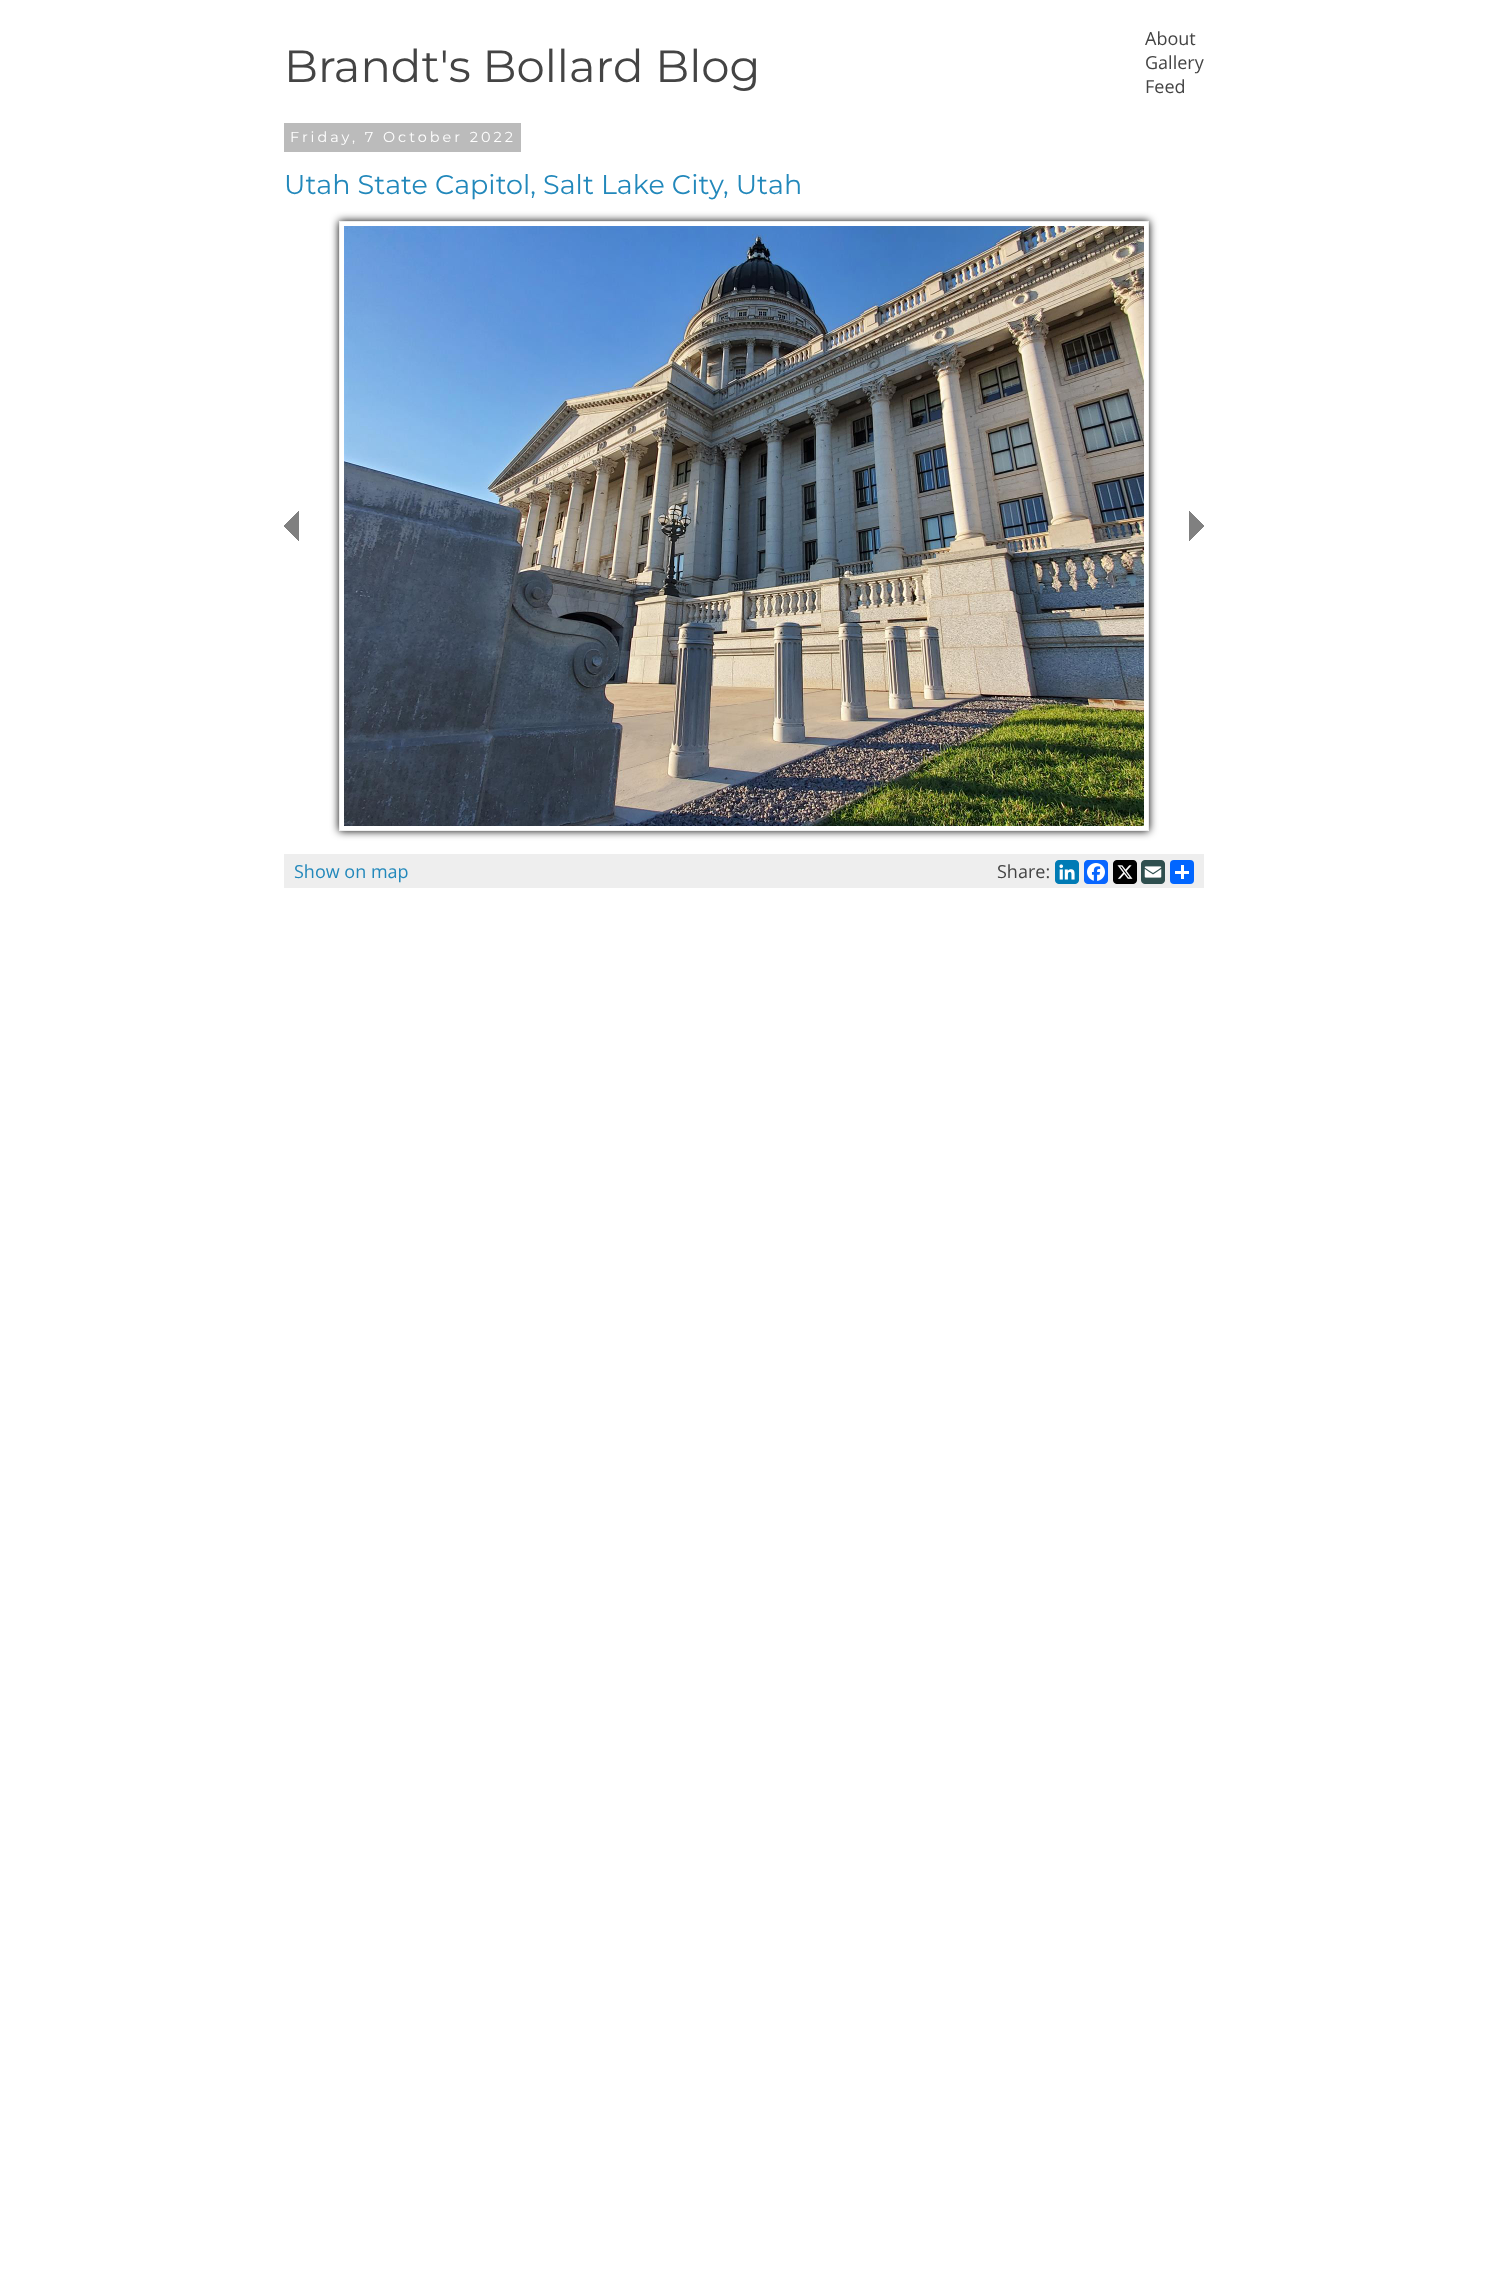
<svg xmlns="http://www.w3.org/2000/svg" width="1488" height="2283">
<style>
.a{font:100 45px Montserrat;fill:#444}
.b{font:18px Open Sans;fill:#444}
.c{font:100 14.4px Montserrat;letter-spacing:3px;fill:#fff}
.d{font:100 27px Montserrat;fill:#28b}
.e{font:18px Open Sans;fill:#28b}
</style>
<defs>
<clipPath id="clip1"><path d="M284 511h15v30H284z"/></clipPath>
<clipPath id="clip2"><path d="M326 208h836v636h-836zm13 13h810v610h-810z" clip-rule="evenodd"/></clipPath>
<clipPath id="clip3"><path d="M1189 511h15v30H1189z"/></clipPath>
</defs>
<rect width="100%" height="100%" fill="#fff"/>
<path fill="#bbb" d="M284 123h237v29H284z"/>
<path fill="#808080" d="M284 526l15-15v30z"/>
<g clip-path="url(#clip1)">
<path fill="none" stroke="#808080" d="M284 526l15-15v30z"/>
</g>
<g clip-path="url(#clip2)">
<path fill="#000" filter="blur(4px)" d="M339 221h810v610H339z"/>
</g>
<path fill="none" stroke="#eee" d="M339.5 221.5h809v609H339.5z"/>
<image href="1.png" x="344" y="226" width="800" height="600"/>
<path fill="#808080" d="M1204 526l-15-15v30z"/>
<g clip-path="url(#clip3)">
<path fill="none" stroke="#808080" d="M1204 526l-15-15v30z"/>
</g>
<path fill="#eee" d="M284 854h920v34H284z"/>
<image href="2.png" x="1055" y="860" width="24" height="24"/>
<image href="3.png" x="1084" y="860" width="24" height="24"/>
<image href="4.png" x="1113" y="860" width="24" height="24"/>
<image href="5.png" x="1141" y="860" width="24" height="24"/>
<rect fill="#0166ff" x="1170" y="860" width="24" height="24" rx="4"/>
<path fill="#fff" d="M1181 865h3v14H1181z"/>
<path fill="#fff" d="M1175 871h14v3H1175z"/>
<text class="a" x="284" y="82">Brandt's Bollard Blog</text>
<text class="b" x="1145" y="45">About</text>
<text class="b" x="1145" y="69">Gallery</text>
<text class="b" x="1145" y="93">Feed</text>
<text class="c" x="290" y="142">Friday, 7 October 2022</text>
<text class="d" x="284" y="194">Utah State Capitol, Salt Lake City, Utah</text>
<text class="e" x="294" y="878">Show on map</text>
<text class="b" x="997" y="878">Share:</text>
</svg>
